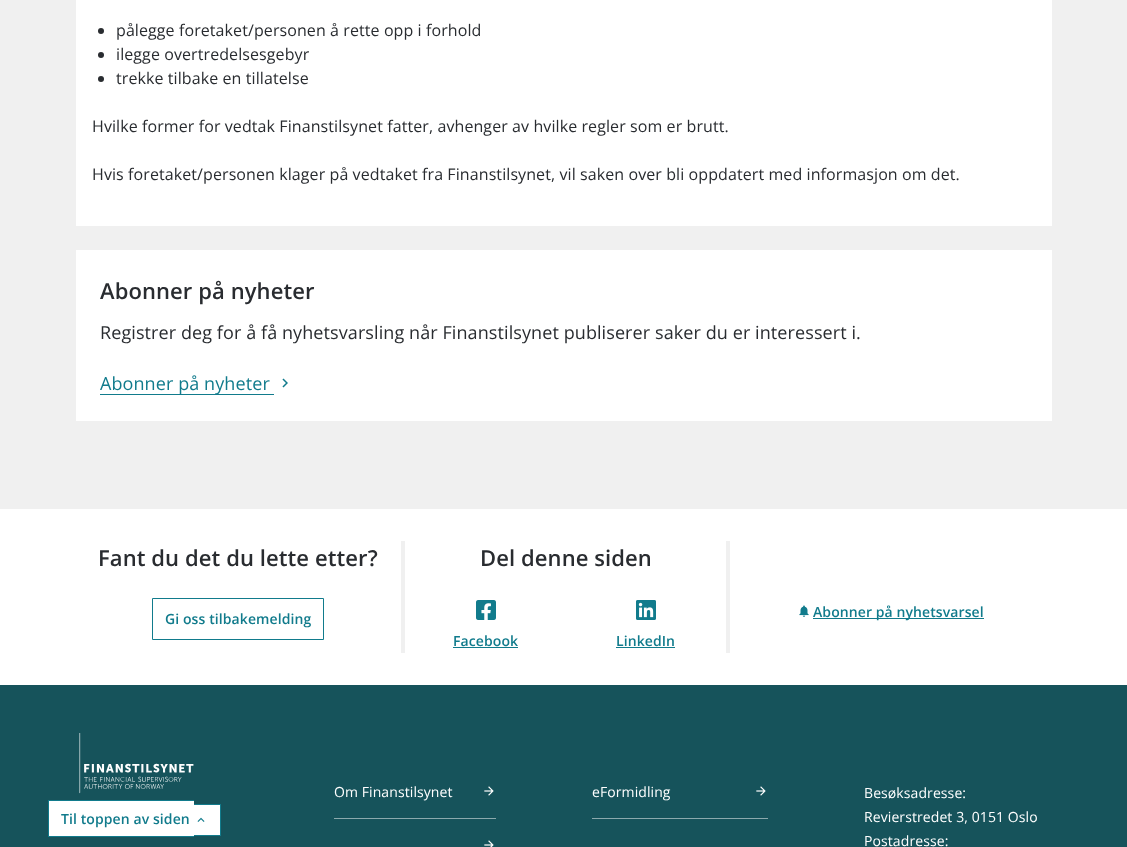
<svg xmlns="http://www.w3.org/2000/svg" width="1127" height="847">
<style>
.a{font:16px Open Sans;letter-spacing:0.09px;fill:#292c30}
.b{font:600 22px Open Sans;letter-spacing:0.09px;fill:#292c30}
.c{font:18px Open Sans;letter-spacing:0.09px;fill:#292c30}
.d{font:18px Open Sans;letter-spacing:0.09px;fill:#117b8c}
.e{font:600 14px Open Sans;letter-spacing:0.09px;fill:#117b8c}
.f{font:14px Open Sans;letter-spacing:0.09px;fill:#fff}
</style>
<rect width="100%" height="100%" fill="#f0f0f0"/>
<path fill="#fff" d="M76 0h976v226H76z"/>
<circle fill="#292c30" cx="101" cy="31" r="3"/>
<circle fill="#292c30" cx="101" cy="55" r="3"/>
<circle fill="#292c30" cx="101" cy="79" r="3"/>
<path fill="#fff" d="M76 250h976v171H76z"/>
<path fill="#117b8c" d="M100 394h174v1H100z"/>
<image href="1.png" x="282" y="378" width="6" height="10"/>
<path fill="#fff" d="M0 509h1127v176H0z"/>
<path fill="none" stroke="#117b8c" d="M152.5 598.5h171v41H152.5z"/>
<path fill="#f0f0f0" d="M401 541h4v112H401z"/>
<image href="2.png" x="476" y="600" width="20" height="20"/>
<path fill="#117b8c" d="M453 647h65v1H453z"/>
<image href="3.png" x="636" y="600" width="20" height="20"/>
<path fill="#117b8c" d="M616 647h59v1H616z"/>
<path fill="#f0f0f0" d="M726 541h4v112H726z"/>
<image href="4.png" x="799" y="605" width="10" height="12"/>
<path fill="#117b8c" d="M813 618h171v1H813z"/>
<path fill="#16535b" d="M0 685h1127v162H0z"/>
<path fill="#fff" d="M49 801h145v35H49z"/>
<path fill="#117b8c" d="M48 800h146v1H48z"/>
<path fill="#117b8c" d="M48 836h146v1H48z"/>
<path fill="#117b8c" d="M48 800h1v37H48z"/>
<path fill="#fff" d="M194 805h26v30H194z"/>
<path fill="#117b8c" d="M194 804h27v1H194z"/>
<path fill="#117b8c" d="M220 804h1v32H220z"/>
<path fill="#117b8c" d="M194 835h27v1H194z"/>
<image href="5.png" x="197" y="817" width="8" height="5"/>
<image href="6.png" x="79" y="733" width="115" height="61"/>
<path fill="#8ba9ad" d="M334 818h162v1H334z"/>
<image href="7.png" x="484" y="786" width="10" height="10"/>
<image href="8.png" x="484" y="840" width="10" height="7"/>
<path fill="#8ba9ad" d="M592 818h176v1H592z"/>
<image href="7.png" x="756" y="786" width="10" height="10"/>
<text class="a" x="116" y="36">pålegge foretaket/personen å rette opp i forhold</text>
<text class="a" x="116" y="60">ilegge overtredelsesgebyr</text>
<text class="a" x="116" y="84">trekke tilbake en tillatelse</text>
<text class="a" x="92" y="132">Hvilke former for vedtak Finanstilsynet fatter, avhenger av hvilke regler som er brutt.</text>
<text class="a" x="92" y="180">Hvis foretaket/personen klager på vedtaket fra Finanstilsynet, vil saken over bli oppdatert med informasjon om det.</text>
<text class="b" x="100" y="299">Abonner på nyheter</text>
<text class="c" x="100" y="339">Registrer deg for å få nyhetsvarsling når Finanstilsynet publiserer saker du er interessert i.</text>
<text class="d" x="100" y="390">Abonner på nyheter</text>
<text class="b" x="98" y="566">Fant du det du lette etter?</text>
<text class="e" x="165" y="624">Gi oss tilbakemelding</text>
<text class="b" x="480" y="566">Del denne siden</text>
<text class="e" x="453" y="646">Facebook</text>
<text class="e" x="616" y="646">LinkedIn</text>
<text class="e" x="813" y="617">Abonner på nyhetsvarsel</text>
<text class="e" x="61" y="824">Til toppen av siden</text>
<text class="f" x="334" y="797">Om Finanstilsynet</text>
<text class="f" x="592" y="797">eFormidling</text>
<text class="f" x="864" y="798">Besøksadresse:</text>
<text class="f" x="864" y="822">Revierstredet 3, 0151 Oslo</text>
<text class="f" x="864" y="846">Postadresse:</text>
</svg>
